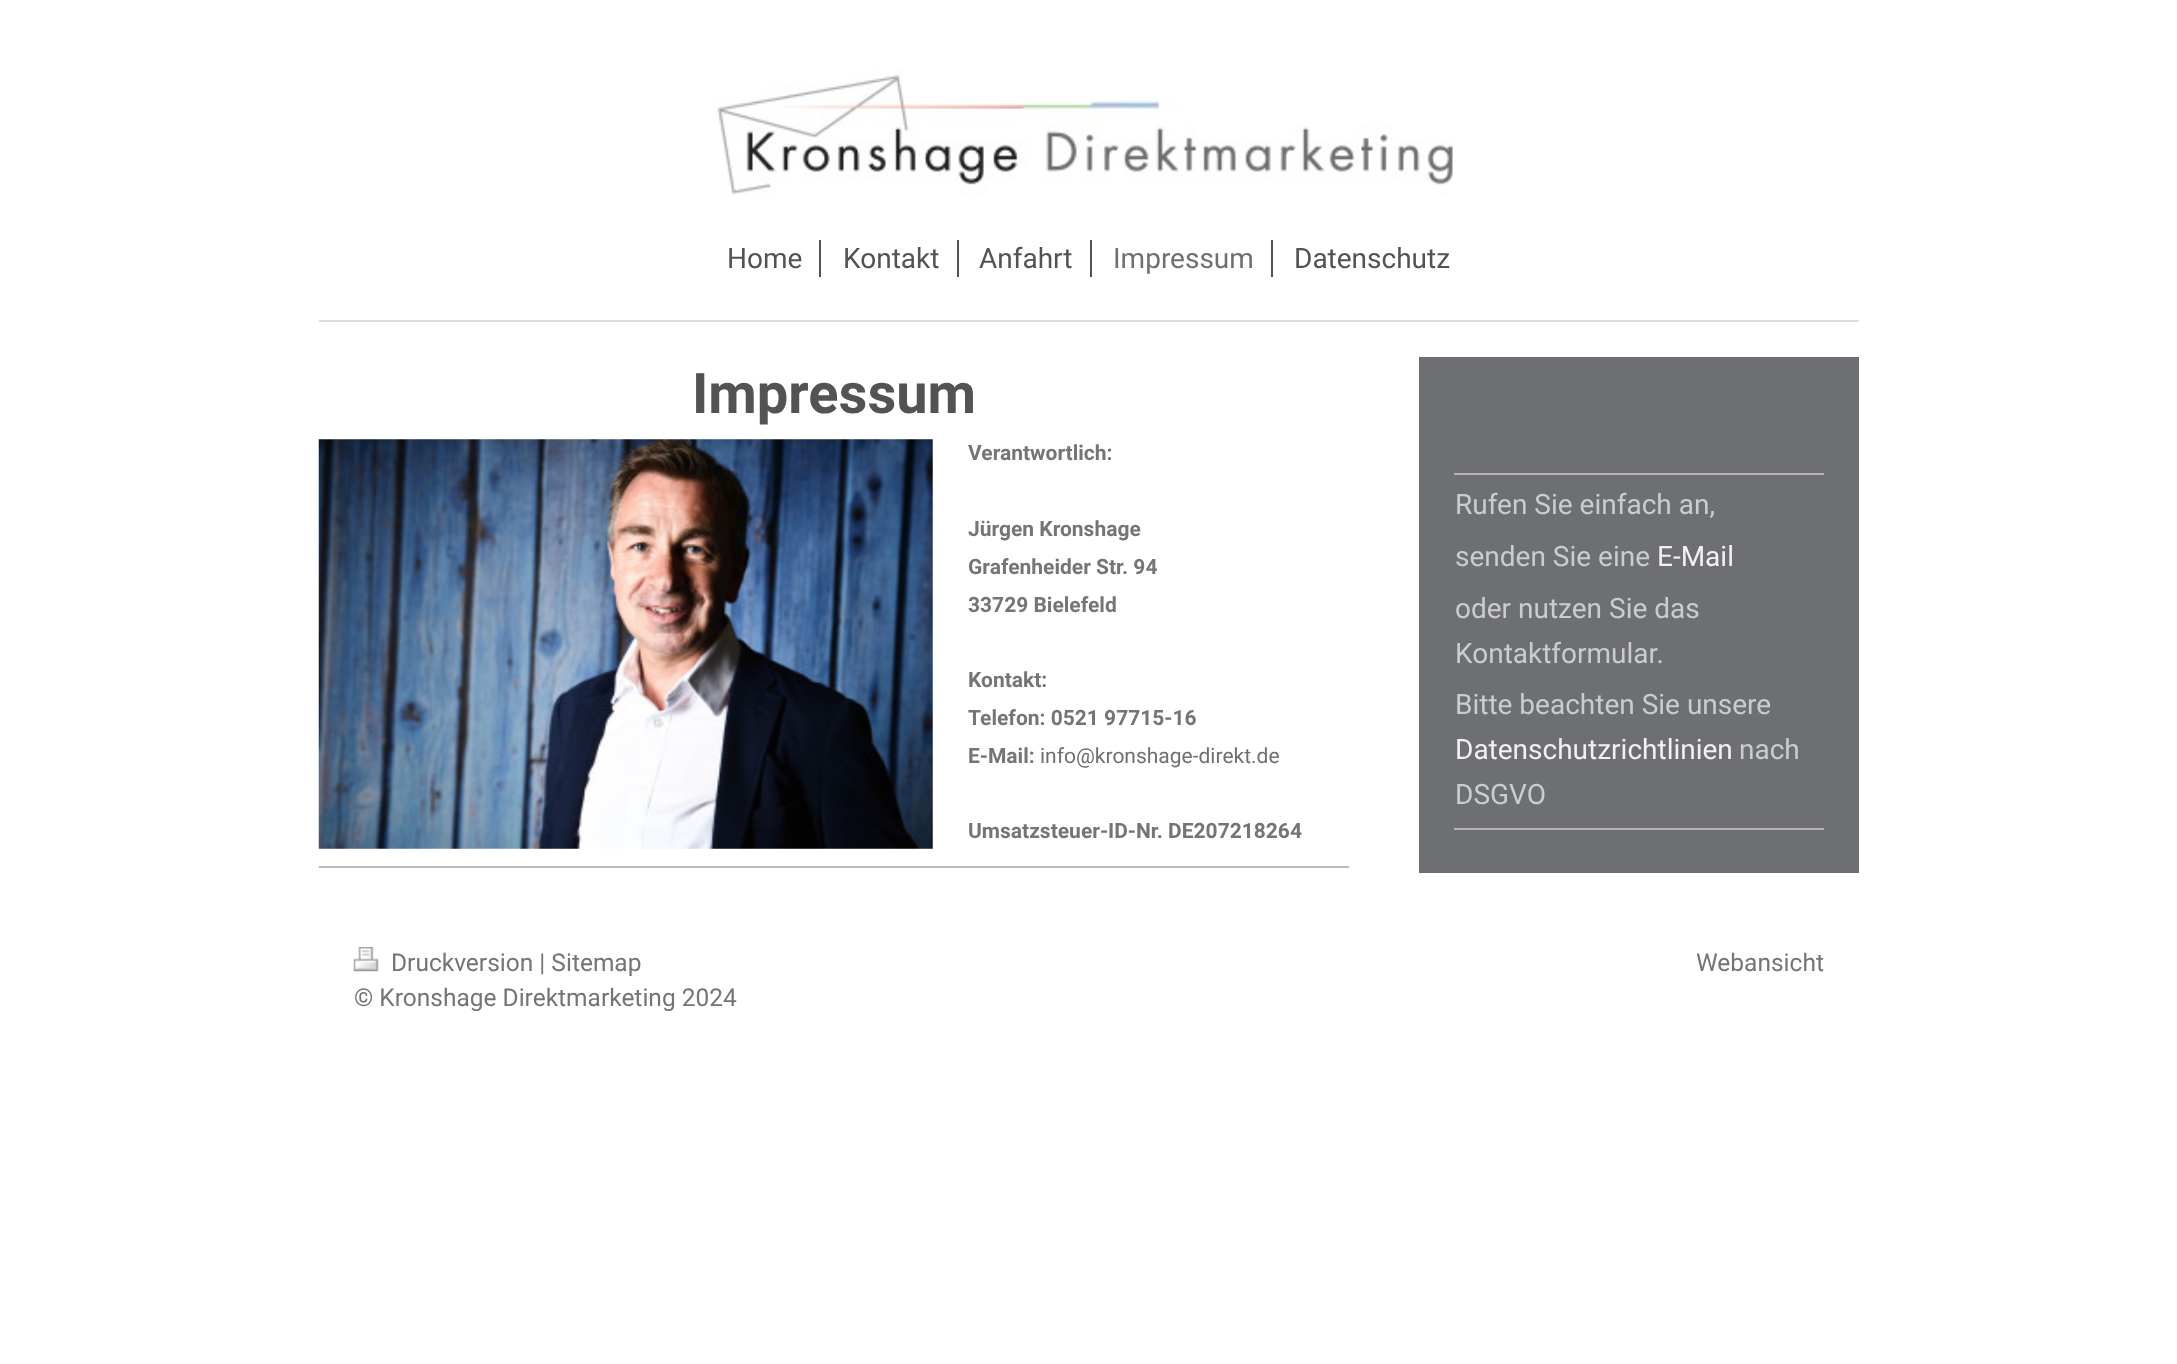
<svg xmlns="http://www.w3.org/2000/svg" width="2177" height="1364">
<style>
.a{font:28px Roboto;fill:#535353}
.b{font:28px Roboto;fill:#6e6f73}
.c{font:bold 56px Roboto;fill:#535353}
.d{font:bold 21px Roboto;fill:#757575}
.e{font:21px Roboto;fill:#6e6f73}
.f{font:28px Roboto;fill:#cbcccd}
.g{font:28px Roboto;fill:#f1f1f1}
.h{font:24.5px Roboto;fill:#757575}
</style>
<rect width="100%" height="100%" fill="#fff"/>
<image href="1.png" x="717" y="70" width="737" height="125"/>
<path fill="#ddd" d="M319 320h1540v2H319z"/>
<path fill="#535353" d="M819 240h2v37H819z"/>
<path fill="#535353" d="M957 240h2v37H957z"/>
<path fill="#535353" d="M1090 240h2v37H1090z"/>
<path fill="#535353" d="M1271 240h2v37H1271z"/>
<image href="2.png" x="318" y="439" width="615" height="410"/>
<path fill="#bababa" d="M319 866h1030v2H319z"/>
<path fill="#6e6f73" d="M1419 357h440v516H1419z"/>
<path fill="#b4b4b7" d="M1454 473h370v2H1454z"/>
<path fill="#b4b4b7" d="M1454 828h370v2H1454z"/>
<image href="3.png" x="353" y="946" width="26" height="26"/>
<text class="a" x="727" y="268">Home</text>
<text class="a" x="843" y="268">Kontakt</text>
<text class="a" x="979" y="268">Anfahrt</text>
<text class="b" x="1113" y="268">Impressum</text>
<text class="a" x="1294" y="268">Datenschutz</text>
<text class="c" x="692" y="413">Impressum</text>
<text class="d" x="968" y="460">Verantwortlich:</text>
<text class="d" x="968" y="536">Jürgen Kronshage</text>
<text class="d" x="968" y="574">Grafenheider Str. 94</text>
<text class="d" x="968" y="612">33729 Bielefeld</text>
<text class="d" x="968" y="687">Kontakt:</text>
<text class="d" x="968" y="725">Telefon: 0521 97715-16</text>
<text class="d" x="968" y="763">E-Mail:</text>
<text class="e" x="1040" y="763">info@kronshage-direkt.de</text>
<text class="d" x="968" y="838">Umsatzsteuer-ID-Nr. DE207218264</text>
<text class="f" x="1455" y="514">Rufen Sie einfach an,</text>
<text class="f" x="1455" y="566">senden Sie eine</text>
<text class="g" x="1657" y="566">E-Mail</text>
<text class="f" x="1455" y="618">oder nutzen Sie das</text>
<text class="f" x="1455" y="663">Kontaktformular.</text>
<text class="f" x="1455" y="714">Bitte beachten Sie unsere</text>
<text class="g" x="1455" y="759">Datenschutzrichtlinien</text>
<text class="f" x="1739" y="759">nach</text>
<text class="f" x="1455" y="804">DSGVO</text>
<text class="h" x="391" y="971">Druckversion | Sitemap</text>
<text class="h" x="354" y="1006">© Kronshage Direktmarketing 2024</text>
<text class="h" x="1696" y="971">Webansicht</text>
</svg>
